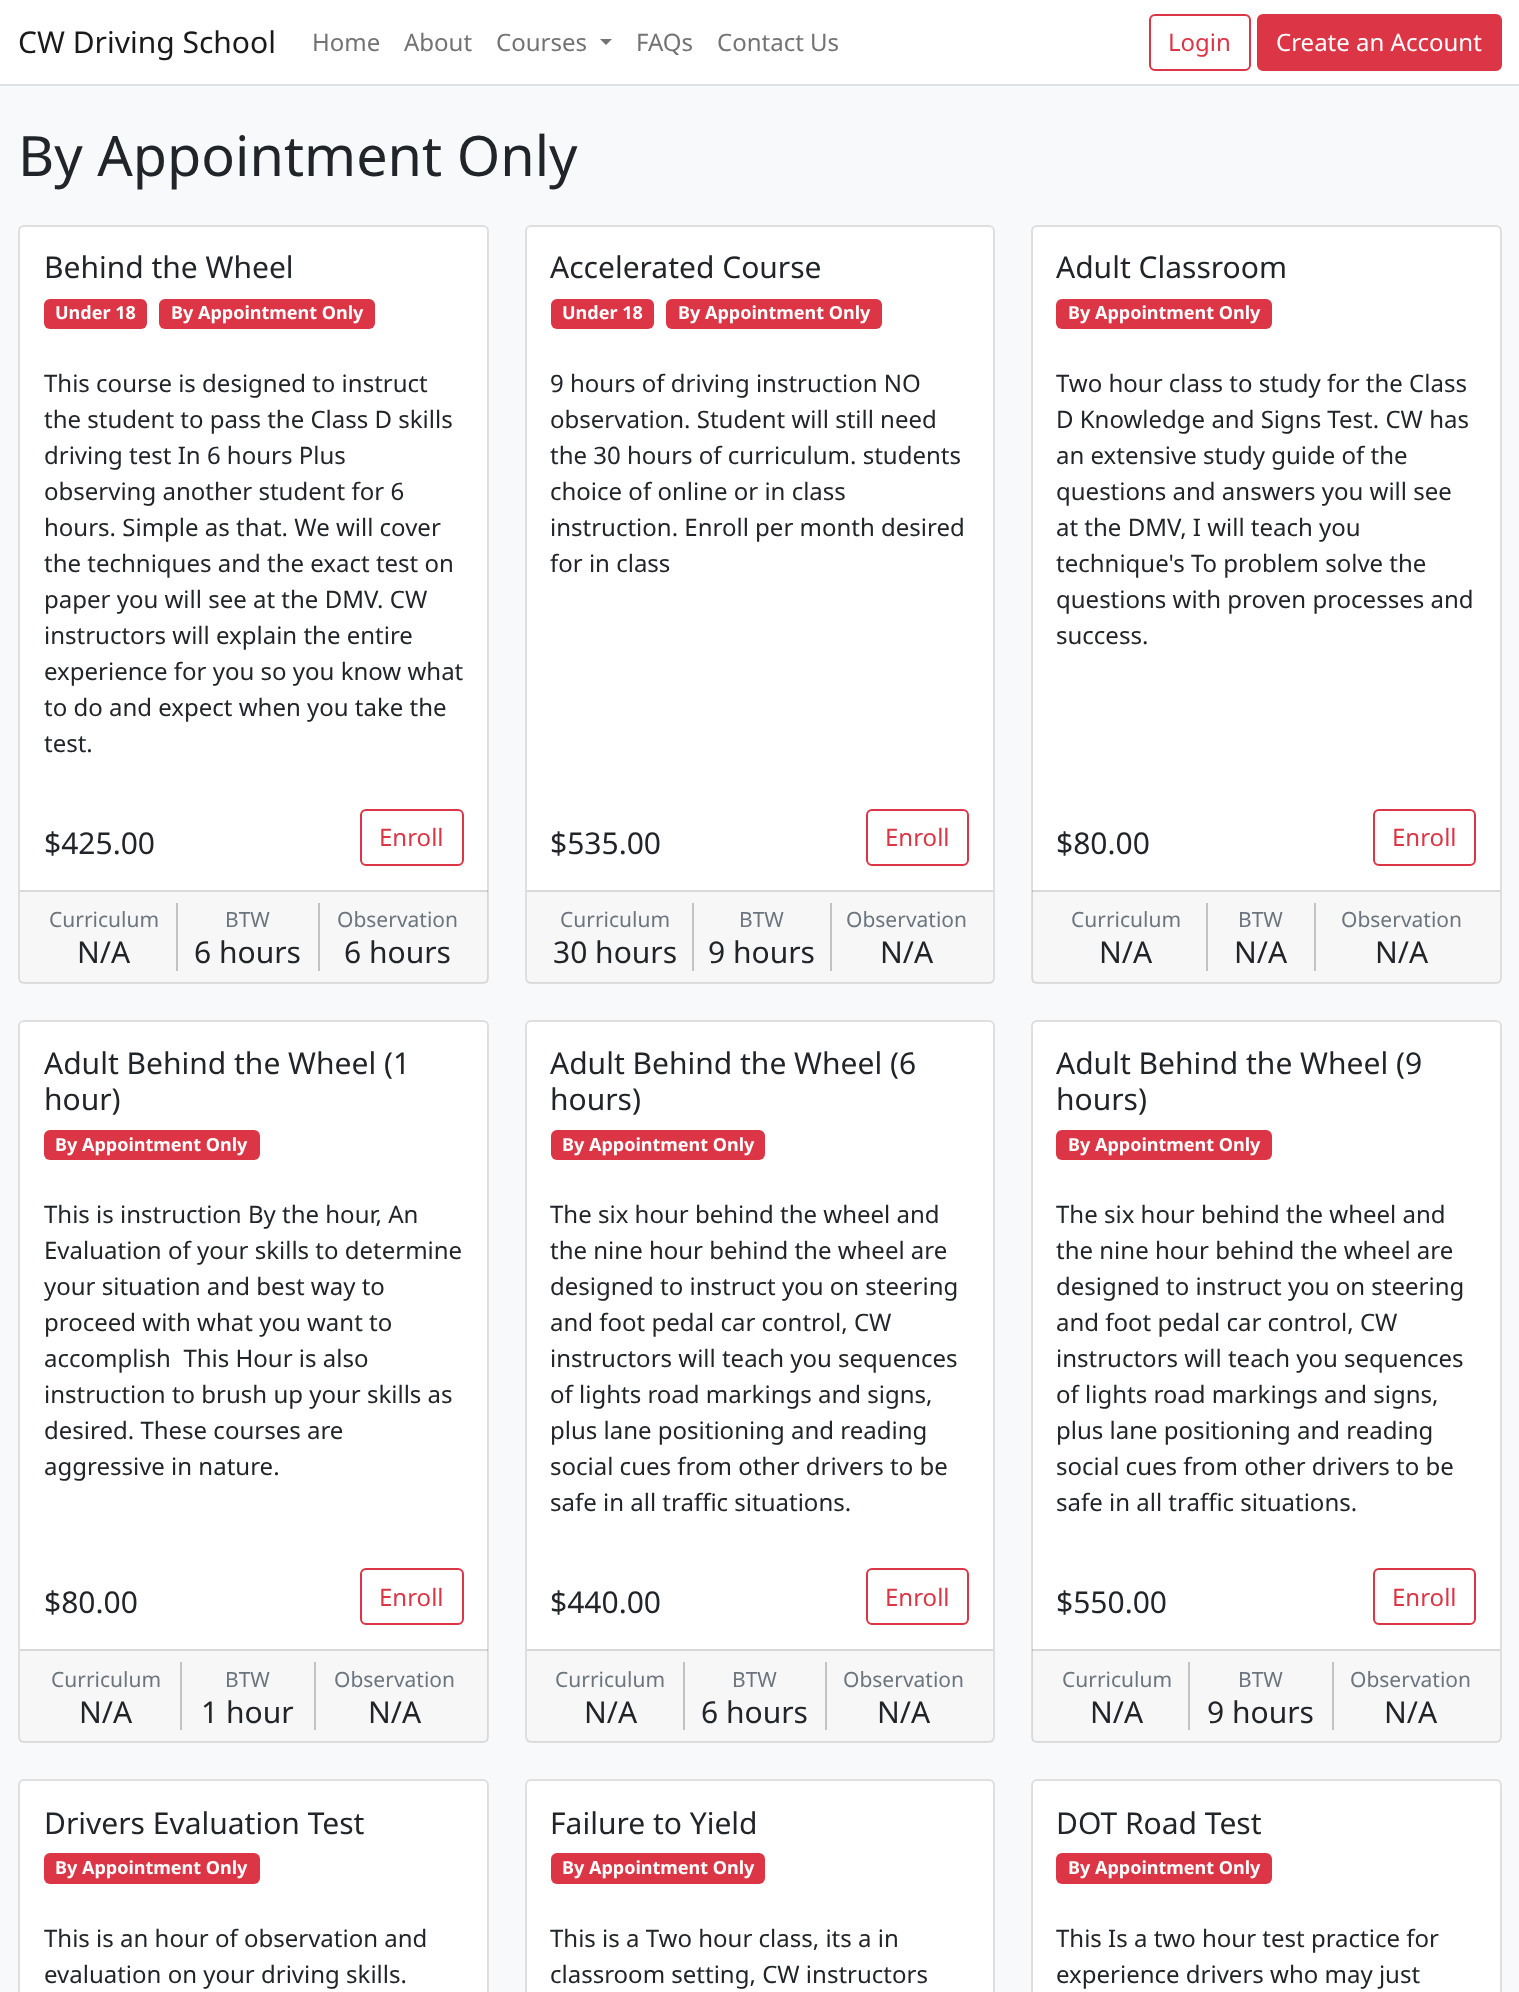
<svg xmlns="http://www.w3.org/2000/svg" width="1519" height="1992">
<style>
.a{font:30px Noto Sans;fill:#1a1a1a}
.b{font:24px Noto Sans;fill:#737373}
.c{font:24px Noto Sans;fill:#dc3545}
.d{font:24px Noto Sans;fill:#fff}
.e{font:55.75px Noto Sans;fill:#212529}
.f{font:30px Noto Sans;fill:#212529}
.g{font:bold 18px Noto Sans;fill:#fff}
.h{font:24px Noto Sans;fill:#212529}
.i{font:21px Noto Sans;fill:#6c757d}
</style>
<rect width="100%" height="100%" fill="#f8f9fa"/>
<path fill="#fff" d="M0 0h1519v84H0z"/>
<path fill="#dee2e6" d="M0 84h1519v2H0z"/>
<path fill="#737373" d="M600 39h12l-6 6z"/>
<rect fill="none" stroke="#dc3545" stroke-width="2" x="1150" y="15" width="100" height="55" rx="5"/>
<rect fill="#dc3545" stroke="#dc3545" stroke-width="2" x="1258" y="15" width="243" height="55" rx="5"/>
<rect fill="#fff" stroke="#dfdfdf" stroke-width="2" x="19" y="226" width="469" height="757" rx="5"/>
<rect fill="#dc3545" x="44" y="299" width="103" height="30" rx="6"/>
<rect fill="#dc3545" x="159" y="299" width="216" height="30" rx="6"/>
<rect fill="none" stroke="#dc3545" stroke-width="2" x="361" y="810" width="102" height="55" rx="5"/>
<path fill="#00000008" d="M20 890h468v93H20z"/>
<path fill="#0000001f" d="M20 890h468v2H20z"/>
<path fill="#c2c3c4" d="M176 903h2v68H176z"/>
<path fill="#c2c3c4" d="M318 903h2v68H318z"/>
<rect fill="#fff" stroke="#dfdfdf" stroke-width="2" x="526" y="226" width="468" height="757" rx="5"/>
<rect fill="#dc3545" x="551" y="299" width="103" height="30" rx="6"/>
<rect fill="#dc3545" x="666" y="299" width="216" height="30" rx="6"/>
<rect fill="none" stroke="#dc3545" stroke-width="2" x="867" y="810" width="101" height="55" rx="5"/>
<path fill="#00000008" d="M527 892h466v91H527z"/>
<path fill="#d8d8d8" d="M527 890h466v2H527z"/>
<path fill="#c2c3c4" d="M692 903h2v68H692z"/>
<path fill="#c2c3c4" d="M830 903h2v68H830z"/>
<rect fill="#fff" stroke="#dfdfdf" stroke-width="2" x="1032" y="226" width="469" height="757" rx="5"/>
<rect fill="#dc3545" x="1056" y="299" width="216" height="30" rx="6"/>
<rect fill="none" stroke="#dc3545" stroke-width="2" x="1374" y="810" width="101" height="55" rx="5"/>
<path fill="#00000008" d="M1032 890h468v93H1032z"/>
<path fill="#0000001f" d="M1032 890h468v2H1032z"/>
<path fill="#c2c3c4" d="M1206 903h2v68H1206z"/>
<path fill="#c2c3c4" d="M1314 903h2v68H1314z"/>
<rect fill="#fff" stroke="#dfdfdf" stroke-width="2" x="19" y="1021" width="469" height="721" rx="5"/>
<rect fill="#dc3545" x="44" y="1130" width="216" height="30" rx="6"/>
<rect fill="none" stroke="#dc3545" stroke-width="2" x="361" y="1569" width="102" height="55" rx="5"/>
<path fill="#00000008" d="M20 1649h468v93H20z"/>
<path fill="#0000001f" d="M20 1649h468v2H20z"/>
<path fill="#c2c3c4" d="M180 1662h2v68H180z"/>
<path fill="#c2c3c4" d="M314 1662h2v68H314z"/>
<rect fill="#fff" stroke="#dfdfdf" stroke-width="2" x="526" y="1021" width="468" height="721" rx="5"/>
<rect fill="#dc3545" x="551" y="1130" width="214" height="30" rx="6"/>
<rect fill="none" stroke="#dc3545" stroke-width="2" x="867" y="1569" width="101" height="55" rx="5"/>
<path fill="#00000008" d="M527 1651h466v91H527z"/>
<path fill="#d8d8d8" d="M527 1649h466v2H527z"/>
<path fill="#c2c3c4" d="M683 1662h2v68H683z"/>
<path fill="#c2c3c4" d="M825 1662h2v68H825z"/>
<rect fill="#fff" stroke="#dfdfdf" stroke-width="2" x="1032" y="1021" width="469" height="721" rx="5"/>
<rect fill="#dc3545" x="1056" y="1130" width="216" height="30" rx="6"/>
<rect fill="none" stroke="#dc3545" stroke-width="2" x="1374" y="1569" width="101" height="55" rx="5"/>
<path fill="#00000008" d="M1032 1649h468v93H1032z"/>
<path fill="#0000001f" d="M1032 1649h468v2H1032z"/>
<path fill="#c2c3c4" d="M1188 1662h2v68H1188z"/>
<path fill="#c2c3c4" d="M1332 1662h2v68H1332z"/>
<rect fill="#fff" stroke="#dfdfdf" stroke-width="2" x="19" y="1780" width="469" height="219" rx="5"/>
<rect fill="#dc3545" x="44" y="1853" width="216" height="31" rx="6"/>
<rect fill="#fff" stroke="#dfdfdf" stroke-width="2" x="526" y="1780" width="468" height="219" rx="5"/>
<rect fill="#dc3545" x="551" y="1853" width="214" height="31" rx="6"/>
<rect fill="#fff" stroke="#dfdfdf" stroke-width="2" x="1032" y="1780" width="469" height="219" rx="5"/>
<rect fill="#dc3545" x="1056" y="1853" width="216" height="31" rx="6"/>
<text class="a" x="18" y="53">CW Driving School</text>
<text class="b" x="312" y="51">Home</text>
<text class="b" x="404" y="51">About</text>
<text class="b" x="496" y="51">Courses</text>
<text class="b" x="636" y="51">FAQs</text>
<text class="b" x="717" y="51">Contact Us</text>
<text class="c" x="1168" y="51">Login</text>
<text class="d" x="1276" y="51">Create an Account</text>
<text class="e" x="18" y="176">By Appointment Only</text>
<text class="f" x="44" y="278">Behind the Wheel</text>
<text class="g" x="55" y="319">Under 18</text>
<text class="g" x="171" y="319">By Appointment Only</text>
<text class="h" x="44" y="392">This course is designed to instruct</text>
<text class="h" x="44" y="428">the student to pass the Class D skills</text>
<text class="h" x="44" y="464">driving test In 6 hours Plus</text>
<text class="h" x="44" y="500">observing another student for 6</text>
<text class="h" x="44" y="536">hours. Simple as that. We will cover</text>
<text class="h" x="44" y="572">the techniques and the exact test on</text>
<text class="h" x="44" y="608">paper you will see at the DMV. CW</text>
<text class="h" x="44" y="644">instructors will explain the entire</text>
<text class="h" x="44" y="680">experience for you so you know what</text>
<text class="h" x="44" y="716">to do and expect when you take the</text>
<text class="h" x="44" y="752">test.</text>
<text class="f" x="44" y="854">$425.00</text>
<text class="c" x="379" y="846">Enroll</text>
<text class="i" x="49" y="927">Curriculum</text>
<text class="f" x="77" y="963">N/A</text>
<text class="i" x="225" y="927">BTW</text>
<text class="f" x="194" y="963">6 hours</text>
<text class="i" x="337" y="927">Observation</text>
<text class="f" x="344" y="963">6 hours</text>
<text class="f" x="550" y="278">Accelerated Course</text>
<text class="g" x="562" y="319">Under 18</text>
<text class="g" x="678" y="319">By Appointment Only</text>
<text class="h" x="550" y="392">9 hours of driving instruction NO</text>
<text class="h" x="550" y="428">observation. Student will still need</text>
<text class="h" x="550" y="464">the 30 hours of curriculum. students</text>
<text class="h" x="550" y="500">choice of online or in class</text>
<text class="h" x="550" y="536">instruction. Enroll per month desired</text>
<text class="h" x="550" y="572">for in class</text>
<text class="f" x="550" y="854">$535.00</text>
<text class="c" x="885" y="846">Enroll</text>
<text class="i" x="560" y="927">Curriculum</text>
<text class="f" x="553" y="963">30 hours</text>
<text class="i" x="739" y="927">BTW</text>
<text class="f" x="708" y="963">9 hours</text>
<text class="i" x="846" y="927">Observation</text>
<text class="f" x="880" y="963">N/A</text>
<text class="f" x="1056" y="278">Adult Classroom</text>
<text class="g" x="1068" y="319">By Appointment Only</text>
<text class="h" x="1056" y="392">Two hour class to study for the Class</text>
<text class="h" x="1056" y="428">D Knowledge and Signs Test. CW has</text>
<text class="h" x="1056" y="464">an extensive study guide of the</text>
<text class="h" x="1056" y="500">questions and answers you will see</text>
<text class="h" x="1056" y="536">at the DMV, I will teach you</text>
<text class="h" x="1056" y="572">technique's To problem solve the</text>
<text class="h" x="1056" y="608">questions with proven processes and</text>
<text class="h" x="1056" y="644">success.</text>
<text class="f" x="1056" y="854">$80.00</text>
<text class="c" x="1392" y="846">Enroll</text>
<text class="i" x="1071" y="927">Curriculum</text>
<text class="f" x="1099" y="963">N/A</text>
<text class="i" x="1238" y="927">BTW</text>
<text class="f" x="1234" y="963">N/A</text>
<text class="i" x="1341" y="927">Observation</text>
<text class="f" x="1375" y="963">N/A</text>
<text class="f" x="44" y="1074">Adult Behind the Wheel (1</text>
<text class="f" x="44" y="1110">hour)</text>
<text class="g" x="55" y="1151">By Appointment Only</text>
<text class="h" x="44" y="1223">This is instruction By the hour, An</text>
<text class="h" x="44" y="1259">Evaluation of your skills to determine</text>
<text class="h" x="44" y="1295">your situation and best way to</text>
<text class="h" x="44" y="1331">proceed with what you want to</text>
<text class="h" xml:space="preserve" x="44" y="1367">accomplish  This Hour is also</text>
<text class="h" x="44" y="1403">instruction to brush up your skills as</text>
<text class="h" x="44" y="1439">desired. These courses are</text>
<text class="h" x="44" y="1475">aggressive in nature.</text>
<text class="f" x="44" y="1613">$80.00</text>
<text class="c" x="379" y="1606">Enroll</text>
<text class="i" x="51" y="1687">Curriculum</text>
<text class="f" x="79" y="1723">N/A</text>
<text class="i" x="225" y="1687">BTW</text>
<text class="f" x="201" y="1723">1 hour</text>
<text class="i" x="334" y="1687">Observation</text>
<text class="f" x="368" y="1723">N/A</text>
<text class="f" x="550" y="1074">Adult Behind the Wheel (6</text>
<text class="f" x="550" y="1110">hours)</text>
<text class="g" x="562" y="1151">By Appointment Only</text>
<text class="h" x="550" y="1223">The six hour behind the wheel and</text>
<text class="h" x="550" y="1259">the nine hour behind the wheel are</text>
<text class="h" x="550" y="1295">designed to instruct you on steering</text>
<text class="h" x="550" y="1331">and foot pedal car control, CW</text>
<text class="h" x="550" y="1367">instructors will teach you sequences</text>
<text class="h" x="550" y="1403">of lights road markings and signs,</text>
<text class="h" x="550" y="1439">plus lane positioning and reading</text>
<text class="h" x="550" y="1475">social cues from other drivers to be</text>
<text class="h" x="550" y="1511">safe in all traffic situations.</text>
<text class="f" x="550" y="1613">$440.00</text>
<text class="c" x="885" y="1606">Enroll</text>
<text class="i" x="555" y="1687">Curriculum</text>
<text class="f" x="584" y="1723">N/A</text>
<text class="i" x="732" y="1687">BTW</text>
<text class="f" x="701" y="1723">6 hours</text>
<text class="i" x="843" y="1687">Observation</text>
<text class="f" x="877" y="1723">N/A</text>
<text class="f" x="1056" y="1074">Adult Behind the Wheel (9</text>
<text class="f" x="1056" y="1110">hours)</text>
<text class="g" x="1068" y="1151">By Appointment Only</text>
<text class="h" x="1056" y="1223">The six hour behind the wheel and</text>
<text class="h" x="1056" y="1259">the nine hour behind the wheel are</text>
<text class="h" x="1056" y="1295">designed to instruct you on steering</text>
<text class="h" x="1056" y="1331">and foot pedal car control, CW</text>
<text class="h" x="1056" y="1367">instructors will teach you sequences</text>
<text class="h" x="1056" y="1403">of lights road markings and signs,</text>
<text class="h" x="1056" y="1439">plus lane positioning and reading</text>
<text class="h" x="1056" y="1475">social cues from other drivers to be</text>
<text class="h" x="1056" y="1511">safe in all traffic situations.</text>
<text class="f" x="1056" y="1613">$550.00</text>
<text class="c" x="1392" y="1606">Enroll</text>
<text class="i" x="1062" y="1687">Curriculum</text>
<text class="f" x="1090" y="1723">N/A</text>
<text class="i" x="1238" y="1687">BTW</text>
<text class="f" x="1207" y="1723">9 hours</text>
<text class="i" x="1350" y="1687">Observation</text>
<text class="f" x="1384" y="1723">N/A</text>
<text class="f" x="44" y="1834">Drivers Evaluation Test</text>
<text class="g" x="55" y="1874">By Appointment Only</text>
<text class="h" x="44" y="1947">This is an hour of observation and</text>
<text class="h" x="44" y="1983">evaluation on your driving skills.</text>
<text class="f" x="550" y="1834">Failure to Yield</text>
<text class="g" x="562" y="1874">By Appointment Only</text>
<text class="h" x="550" y="1947">This is a Two hour class, its a in</text>
<text class="h" x="550" y="1983">classroom setting, CW instructors</text>
<text class="f" x="1056" y="1834">DOT Road Test</text>
<text class="g" x="1068" y="1874">By Appointment Only</text>
<text class="h" x="1056" y="1947">This Is a two hour test practice for</text>
<text class="h" x="1056" y="1983">experience drivers who may just</text>
</svg>
